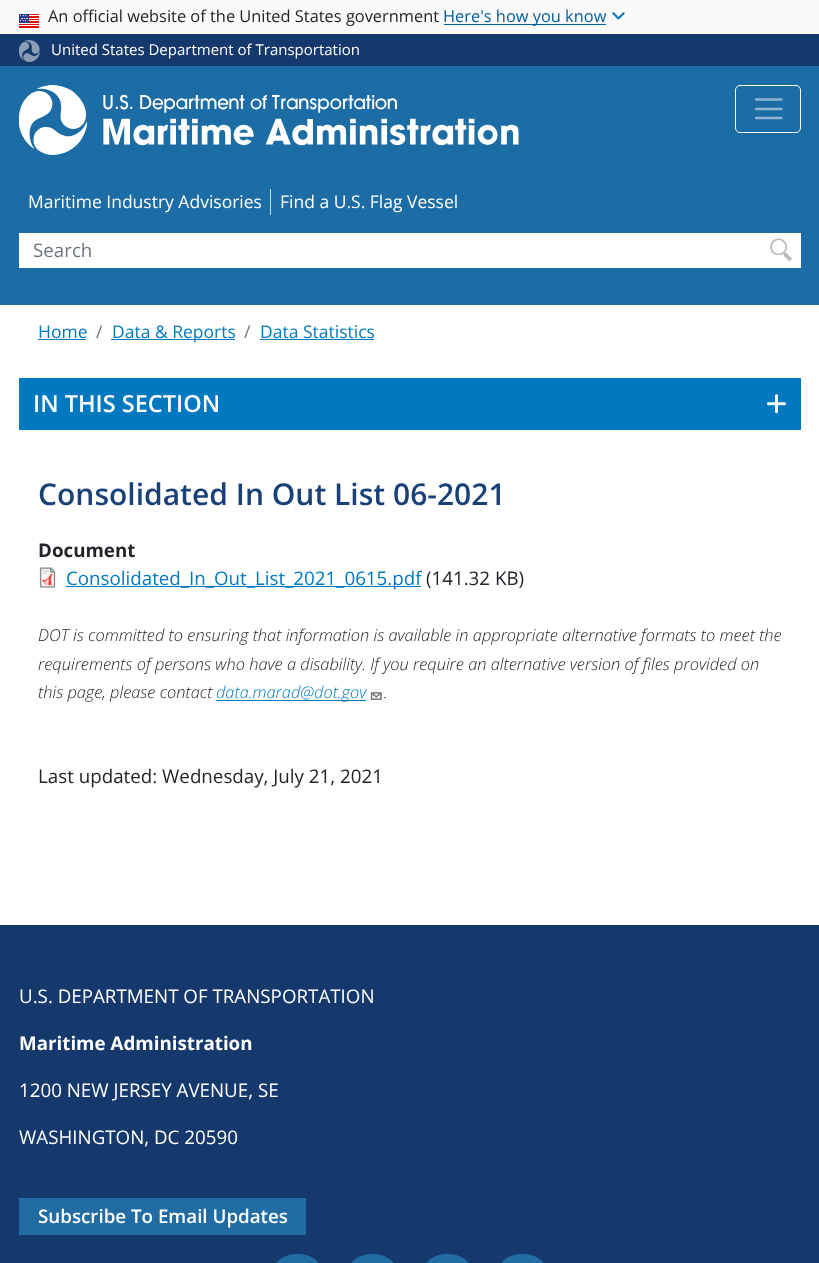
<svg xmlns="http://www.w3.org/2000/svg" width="819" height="1263">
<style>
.a{font:16.4px Open Sans;fill:#212529}
.b{font:16.4px Open Sans;fill:#005ea2}
.c{font:15px Open Sans;fill:#fff}
.d{font:17.5px Open Sans;fill:#fff}
.e{font:18.75px Open Sans;fill:#6c757d}
.f{font:17.5px Open Sans;fill:#0079c0}
.g{font:17.5px Open Sans;fill:#6c757d}
.h{font:600 23.5px Open Sans;fill:#fff}
.i{font:600 30px Open Sans;fill:#194178}
.j{font:bold 18.75px Open Sans;fill:#212529}
.k{font:18.75px Open Sans;fill:#0079c0}
.l{font:18.75px Open Sans;fill:#212529}
.m{font:italic 300 16.4px Open Sans;fill:#212529}
.n{font:italic 300 16.4px Open Sans;fill:#0079c0}
.o{font:18.75px Open Sans;fill:#fff}
.p{font:bold 18.75px Open Sans;fill:#fff}
.q{font:600 18.75px Open Sans;fill:#fff}
</style>
<rect width="100%" height="100%" fill="#fff"/>
<path fill="#fafafa" d="M0 0h819v34H0z"/>
<image href="1.png" x="19" y="14" width="20" height="14"/>
<path fill="#005ea2" d="M444 24h162v1H444z"/>
<image href="2.png" x="612" y="12" width="13" height="8"/>
<path fill="#15396c" d="M0 34h819v32H0z"/>
<image href="3.png" x="19" y="40" width="21" height="22"/>
<path fill="#1c6da6" d="M0 66h819v239H0z"/>
<image href="4.png" x="19" y="85" width="500" height="70"/>
<rect fill="none" stroke="#fff" x="735.5" y="85.5" width="65" height="47" rx="4.5"/>
<path fill="none" stroke="#8eb6d3" stroke-width="2.3" stroke-linecap="round" d="M756 99.5h25.5m-25.5 9.5h25.5m-25.5 9h25.5"/>
<path fill="#bfe3f6" d="M270 189h1v26H270z"/>
<path fill="#fff" d="M19 233h782v35H19z"/>
<image href="5.png" x="770" y="238" width="22" height="23"/>
<path fill="#0079c0" d="M38 339h48v1H38z"/>
<path fill="#0079c0" d="M111 339h124v1H111z"/>
<path fill="#0079c0" d="M260 339h114v1H260z"/>
<path fill="#0079c0" d="M19 378h782v52H19z"/>
<image href="6.png" x="767" y="394" width="19" height="20"/>
<image href="7.png" x="39" y="567" width="17" height="21"/>
<path fill="#0079c0" d="M66 586h355v1H66z"/>
<path fill="#0079c0" d="M216 700h150v1H216z"/>
<image href="8.png" x="370" y="692" width="12" height="8"/>
<path fill="#15396c" d="M0 925h819v338H0z"/>
<path fill="#216da3" d="M19 1198h287v37H19z"/>
<rect fill="#216da3" x="274" y="1254" width="47" height="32" rx="23"/>
<rect fill="#216da3" x="349" y="1254" width="47" height="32" rx="23"/>
<rect fill="#216da3" x="424" y="1254" width="47" height="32" rx="23"/>
<rect fill="#216da3" x="499" y="1254" width="47" height="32" rx="23"/>
<text class="a" x="48" y="22">An official website of the United States government</text>
<text class="b" x="443" y="22">Here's how you know</text>
<text class="c" x="51" y="55">United States Department of Transportation</text>
<text class="d" x="28" y="208">Maritime Industry Advisories</text>
<text class="d" x="280" y="208">Find a U.S. Flag Vessel</text>
<text class="e" x="33" y="257">Search</text>
<text class="f" x="38" y="338">Home</text>
<text class="g" x="96" y="338">/</text>
<text class="f" x="112" y="338">Data &amp; Reports</text>
<text class="g" x="244" y="338">/</text>
<text class="f" x="260" y="338">Data Statistics</text>
<text class="h" x="33" y="412">IN THIS SECTION</text>
<text class="i" x="38" y="505">Consolidated In Out List 06-2021</text>
<text class="j" x="38" y="557">Document</text>
<text class="k" x="66" y="585">Consolidated_In_Out_List_2021_0615.pdf</text>
<text class="l" x="426" y="585">(141.32 KB)</text>
<text class="m" x="38" y="641">DOT is committed to ensuring that information is available in appropriate alternative formats to meet the</text>
<text class="m" x="38" y="670">requirements of persons who have a disability. If you require an alternative version of files provided on</text>
<text class="m" x="38" y="698">this page, please contact</text>
<text class="n" x="216" y="698">data.marad@dot.gov</text>
<text class="m" x="384" y="698">.</text>
<text class="l" x="38" y="783">Last updated: Wednesday, July 21, 2021</text>
<text class="o" x="19" y="1003">U.S. DEPARTMENT OF TRANSPORTATION</text>
<text class="p" x="19" y="1050">Maritime Administration</text>
<text class="o" x="19" y="1097">1200 NEW JERSEY AVENUE, SE</text>
<text class="o" x="19" y="1144">WASHINGTON, DC 20590</text>
<text class="q" x="38" y="1223">Subscribe To Email Updates</text>
</svg>
